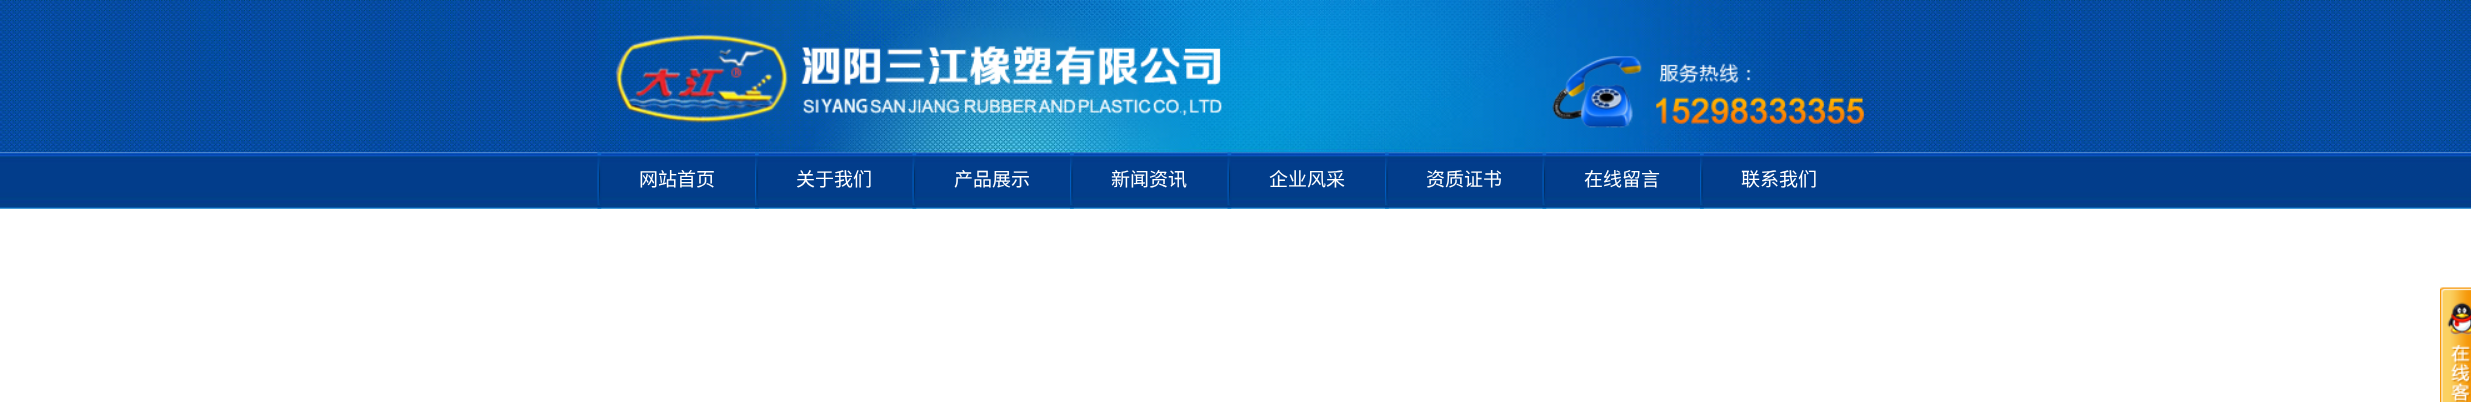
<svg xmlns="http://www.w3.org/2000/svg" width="2471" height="402">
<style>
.a{font:19px Noto Sans CJK SC;fill:#fff}
</style>
<rect width="100%" height="100%" fill="#fff"/>
<image href="1.png" x="0" y="0" width="2471" height="153"/>
<image href="2.png" x="597" y="0" width="1277" height="153"/>
<image href="3.png" x="0" y="152" width="2471" height="57"/>
<image href="4.png" x="597" y="152" width="5" height="57"/>
<image href="5.png" x="755" y="152" width="4" height="57"/>
<image href="6.png" x="912" y="152" width="5" height="57"/>
<image href="7.png" x="1070" y="152" width="4" height="57"/>
<image href="8.png" x="1227" y="152" width="5" height="57"/>
<image href="9.png" x="1385" y="152" width="4" height="57"/>
<image href="10.png" x="1542" y="152" width="5" height="57"/>
<image href="11.png" x="1700" y="152" width="4" height="57"/>
<image href="12.png" x="2440" y="287" width="31" height="115"/>
<text class="a" x="639" y="186">网站首页</text>
<text class="a" x="796" y="186">关于我们</text>
<text class="a" x="954" y="186">产品展示</text>
<text class="a" x="1111" y="186">新闻资讯</text>
<text class="a" x="1269" y="186">企业风采</text>
<text class="a" x="1426" y="186">资质证书</text>
<text class="a" x="1584" y="186">在线留言</text>
<text class="a" x="1741" y="186">联系我们</text>
</svg>
